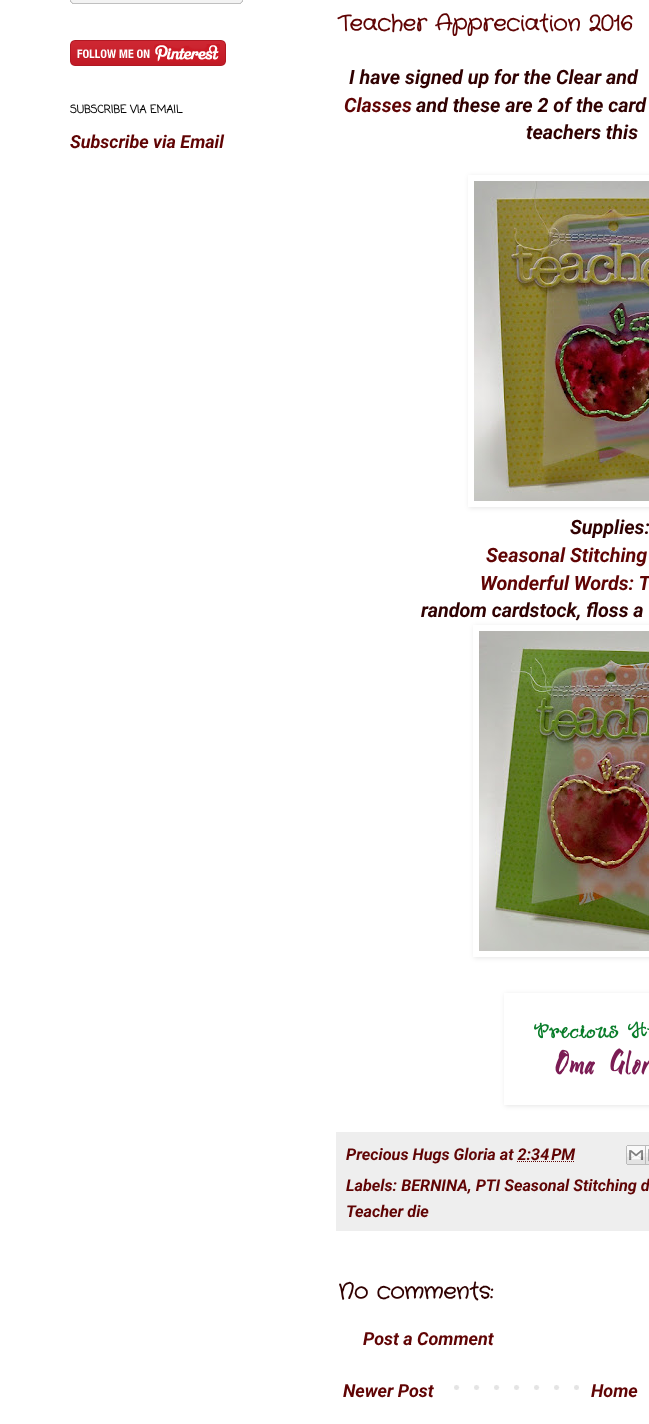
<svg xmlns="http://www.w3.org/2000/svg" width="649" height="1424">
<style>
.a{font:bold 11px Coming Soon;fill:#000}
.b{font:italic bold 18px Roboto;fill:#600404}
.c{font:bold 22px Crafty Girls;fill:#600404}
.d{font:italic bold 19.75px Roboto;fill:#300101}
.e{font:italic bold 19.75px Roboto;fill:#600404}
.f{font:italic bold 16.25px Roboto;fill:#600404}
.g{font:bold 22px Crafty Girls;fill:#300101}
</style>
<defs>
<clipPath id="clip1"><path d="M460 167h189v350h-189zm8 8h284v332h-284z" clip-rule="evenodd"/></clipPath>
<clipPath id="clip2"><path d="M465 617h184v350h-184zm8 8h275v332h-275z" clip-rule="evenodd"/></clipPath>
<clipPath id="clip3"><path d="M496 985h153v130h-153zm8 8h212v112h-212z" clip-rule="evenodd"/></clipPath>
</defs>
<rect width="100%" height="100%" fill="#fff"/>
<image href="1.png" x="70" y="0" width="173" height="4"/>
<image href="2.png" x="70" y="40" width="156" height="26"/>
<g clip-path="url(#clip1)">
<path fill="#0000001a" filter="blur(2.5px)" d="M469 176h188v332H469z"/>
</g>
<image href="3.png" x="474" y="181" width="175" height="320"/>
<g clip-path="url(#clip2)">
<path fill="#0000001a" filter="blur(2.5px)" d="M474 626h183v332H474z"/>
</g>
<image href="4.png" x="479" y="631" width="170" height="320"/>
<g clip-path="url(#clip3)">
<path fill="#0000001a" filter="blur(2.5px)" d="M505 994h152v112H505z"/>
</g>
<image href="5.png" x="534" y="1021" width="115" height="54"/>
<path fill="#eee" d="M336 1132h313v99H336z"/>
<image href="6.png" x="626" y="1145" width="20" height="20"/>
<image href="7.png" x="646" y="1145" width="3" height="20"/>
<path fill="none" stroke="#600404" stroke-dasharray="1 1" d="M517 1161.5h57.5"/>
<image href="8.png" x="454" y="1385" width="125" height="5"/>
<text class="a" x="70" y="113">SUBSCRIBE VIA EMAIL</text>
<text class="b" x="70" y="148">Subscribe via Email</text>
<text class="c" x="338" y="30">Teacher Appreciation 2016</text>
<text class="d" x="349" y="84">I have signed up for the Clear and</text>
<text class="e" x="344" y="112">Classes</text>
<text class="d" x="416" y="112">and these are 2 of the card</text>
<text class="d" x="526" y="139">teachers this</text>
<text class="d" x="570" y="534">Supplies:</text>
<text class="e" x="486" y="562">Seasonal Stitching</text>
<text class="e" x="480" y="590">Wonderful Words: T</text>
<text class="d" x="421" y="617">random cardstock, floss a</text>
<text class="f" x="346" y="1160">Precious Hugs Gloria at 2:34 PM</text>
<text class="f" x="346" y="1191">Labels: BERNINA, PTI Seasonal Stitching d</text>
<text class="f" x="346" y="1217">Teacher die</text>
<text class="g" x="338" y="1298">No comments:</text>
<text class="b" x="363" y="1345">Post a Comment</text>
<text class="b" x="343" y="1397">Newer Post</text>
<text class="b" x="591" y="1397">Home</text>
</svg>
